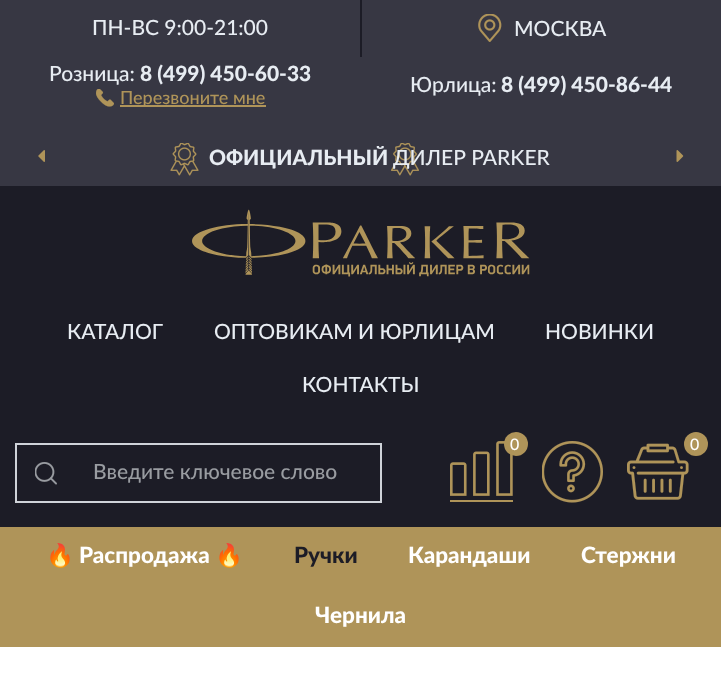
<svg xmlns="http://www.w3.org/2000/svg" width="721" height="691">
<style>
.a{font:500 21px Lato;fill:#e7ecf2}
.b{font:900 21px Lato;fill:#e7ecf2}
.c{font:500 18px Lato;fill:#af9459}
.d{font:500 16px Lato;fill:#fff}
.e{font:500 21px Lato;fill:#999ca1}
.f{font:22.5px Noto Color Emoji;fill:#fff}
.g{font:900 22.5px Lato;fill:#fff}
.h{font:900 22.5px Lato;fill:#1c1c26}
</style>
<rect width="100%" height="100%" fill="#fff"/>
<path fill="#373743" d="M0 0h721v186H0z"/>
<path fill="#1c1c26" d="M360 0h2v57H360z"/>
<image href="1.png" x="478" y="14" width="24" height="28"/>
<image href="2.png" x="96" y="89" width="18" height="18"/>
<path fill="#af9459" d="M120 105h146v2H120z"/>
<image href="3.png" x="170" y="143" width="249" height="33"/>
<image href="4.png" x="38" y="150" width="7" height="12"/>
<image href="5.png" x="676" y="150" width="8" height="12"/>
<path fill="#1c1c26" d="M0 186h721v341H0z"/>
<image href="6.png" x="192" y="209" width="338" height="68"/>
<image href="7.png" x="450" y="441" width="63" height="61"/>
<circle fill="#af9459" cx="516" cy="444" r="12"/>
<image href="8.png" x="542" y="441" width="61" height="62"/>
<image href="9.png" x="627" y="443" width="62" height="57"/>
<circle fill="#af9459" cx="696" cy="444" r="12"/>
<image href="10.png" x="35" y="462" width="22" height="23"/>
<path fill="#cfd3d9" d="M15 443h366v2H15z"/>
<path fill="#cfd3d9" d="M15 501h60v2H15z"/>
<path fill="#cfd3d9" d="M15 443h2v60H15z"/>
<path fill="#cfd3d9" d="M380 443h2v60H380z"/>
<path fill="#cfd3d9" d="M75 501h306v2H75z"/>
<path fill="#af9459" d="M0 527h721v120H0z"/>
<text class="a" x="92" y="35">ПН-ВС 9:00-21:00</text>
<text class="a" x="514" y="36">МОСКВА</text>
<text class="a" x="49" y="81">Розница:</text>
<text class="b" x="140" y="81">8 (499) 450-60-33</text>
<text class="c" x="120" y="104">Перезвоните мне</text>
<text class="a" x="410" y="92">Юрлица:</text>
<text class="b" x="501" y="92">8 (499) 450-86-44</text>
<text class="b" x="209" y="165">ОФИЦИАЛЬНЫЙ</text>
<text class="a" x="393" y="165">ДИЛЕР PARKER</text>
<text class="a" x="67" y="339">КАТАЛОГ</text>
<text class="a" x="214" y="339">ОПТОВИКАМ И ЮРЛИЦАМ</text>
<text class="a" x="545" y="339">НОВИНКИ</text>
<text class="a" x="302" y="392">КОНТАКТЫ</text>
<text class="d" x="510" y="450">0</text>
<text class="d" x="690" y="450">0</text>
<text class="e" x="93" y="479">Введите ключевое слово</text>
<text class="f" x="46" y="563">🔥</text>
<text class="g" x="79" y="563">Распродажа</text>
<text class="f" x="215" y="563">🔥</text>
<text class="h" x="294" y="563">Ручки</text>
<text class="g" x="408" y="563">Карандаши</text>
<text class="g" x="581" y="563">Стержни</text>
<text class="g" x="315" y="623">Чернила</text>
</svg>
